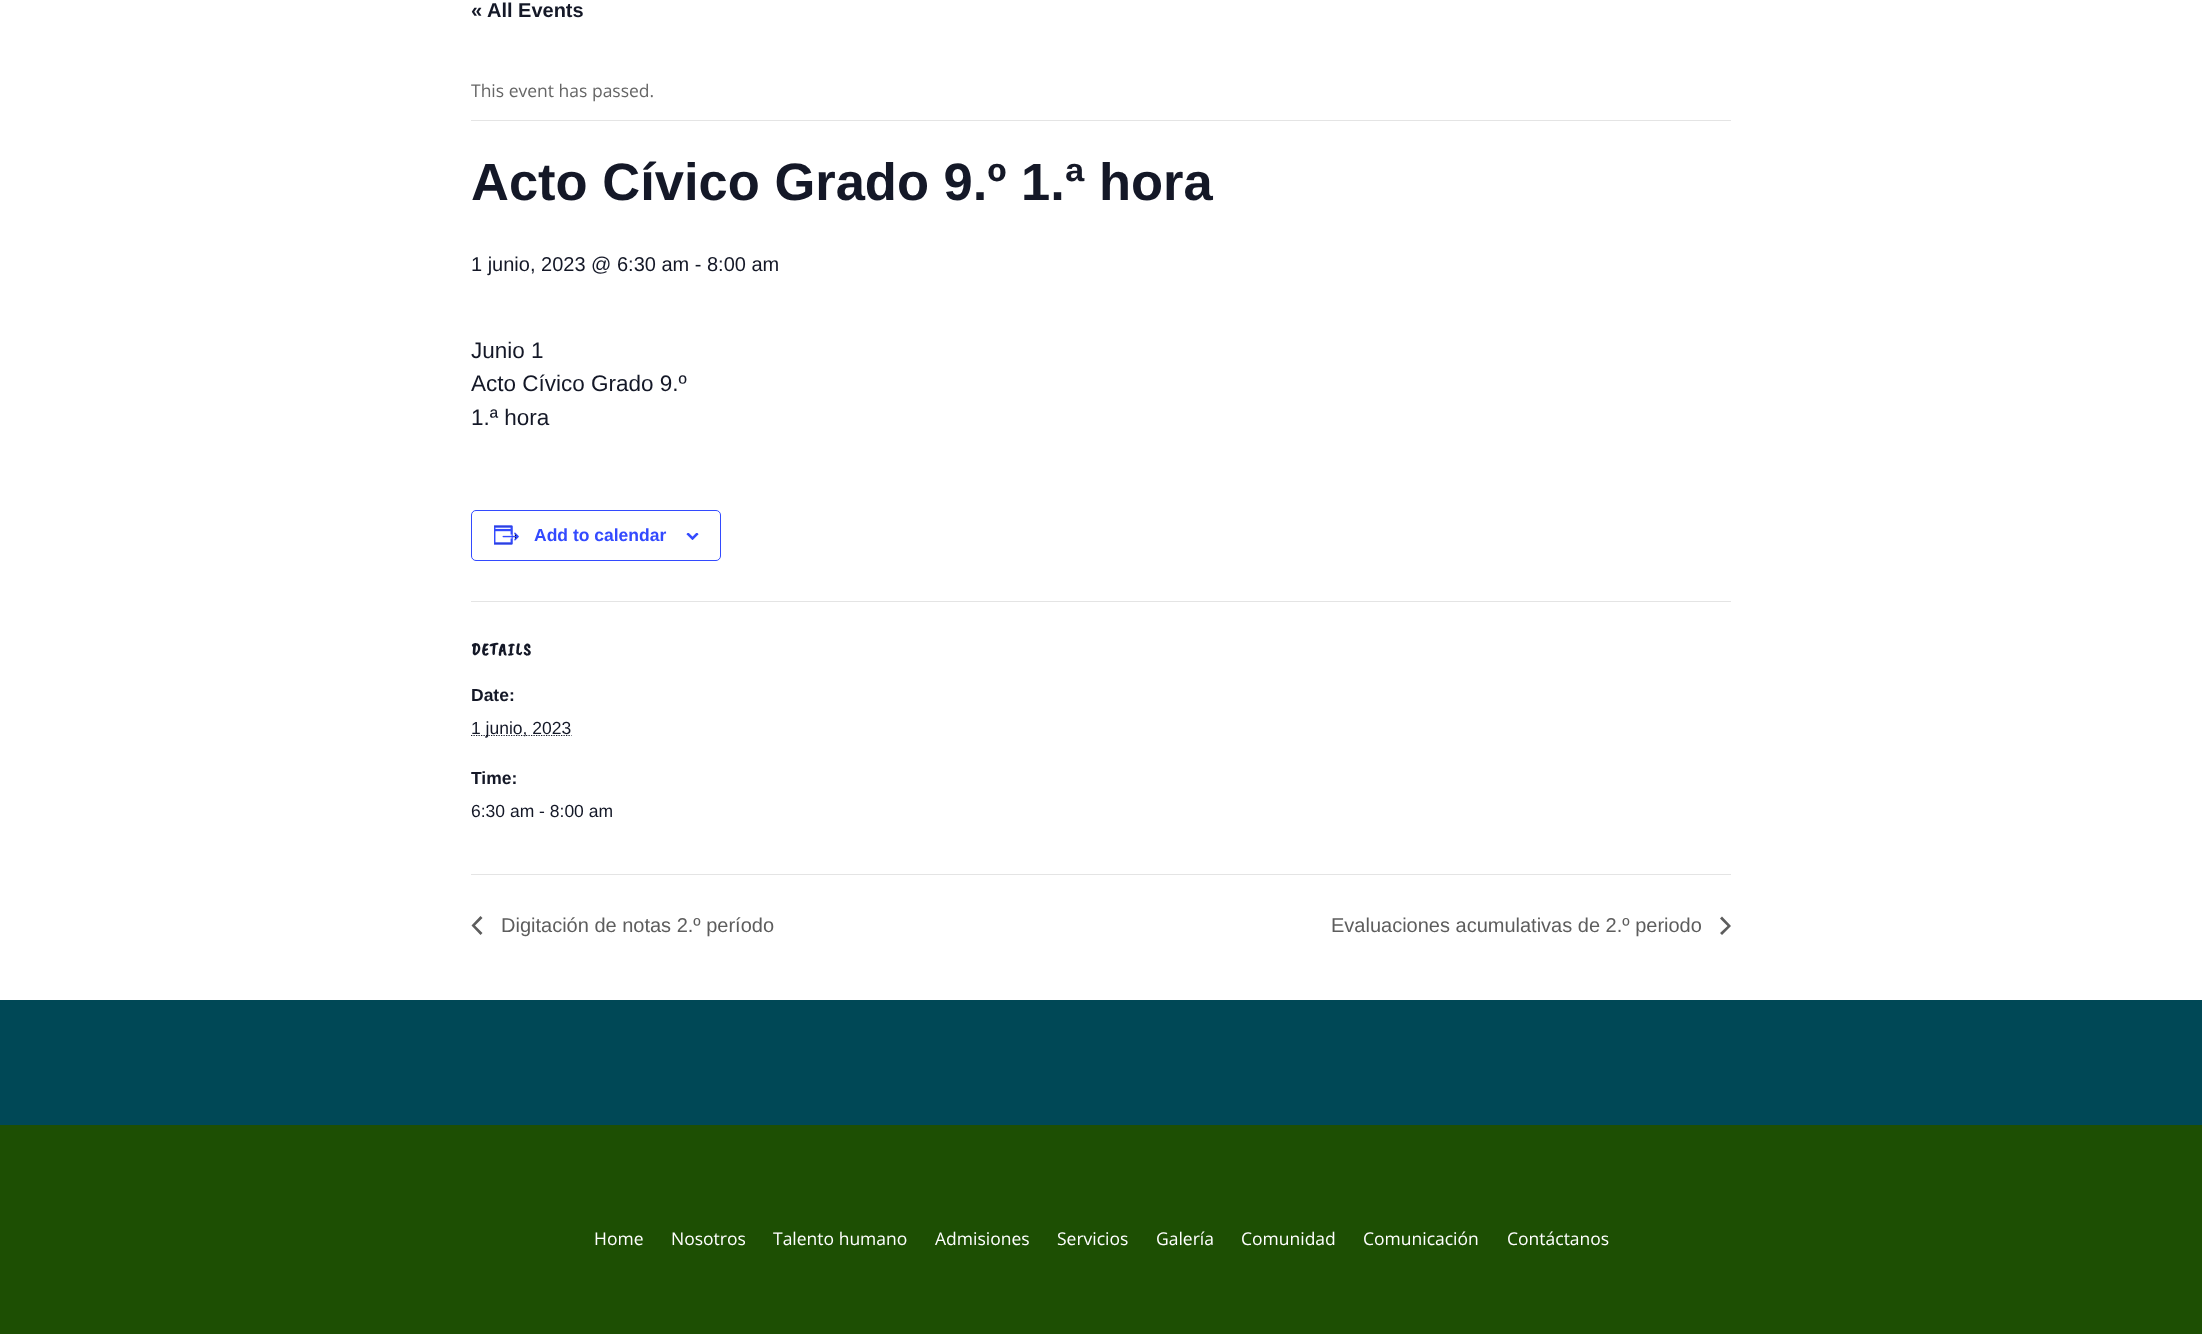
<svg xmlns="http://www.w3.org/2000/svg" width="2202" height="1334">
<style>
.a{font:bold 20px Liberation Sans;fill:#141827}
.b{font:17.5px Open Sans;fill:#666}
.c{font:bold 52.5px Liberation Sans;fill:#141827}
.d{font:20px Liberation Sans;fill:#141827}
.e{font:22.5px Liberation Sans;fill:#141827}
.f{font:bold 17.5px Liberation Sans;fill:#334aff}
.g{font:bold 17.5px Caveat Brush;letter-spacing:1.25px;fill:#141827}
.h{font:bold 17.5px Liberation Sans;fill:#141827}
.i{font:17.5px Liberation Sans;fill:#141827}
.j{font:20px Liberation Sans;fill:#5d5d5d}
.k{font:17.5px Open Sans;fill:#fff}
</style>
<rect width="100%" height="100%" fill="#fff"/>
<path fill="#e4e4e4" d="M471 120h1260v1H471z"/>
<rect fill="none" stroke="#334aff" x="471.5" y="510.5" width="249" height="50" rx="4.5"/>
<image href="1.png" x="494" y="525" width="25" height="20"/>
<image href="2.png" x="686" y="533" width="13" height="7"/>
<path fill="#e4e4e4" d="M471 601h1260v1H471z"/>
<path fill="none" stroke="#141827" stroke-width="1.2" stroke-dasharray="1.25 1.25" d="M471 735.5h100.5"/>
<path fill="#e4e4e4" d="M471 874h1260v1H471z"/>
<path fill="#5d5d5d" d="M482.5 933l-2 2l-9-9.5l9-9.5l2 2l-7.5 7.5z"/>
<path fill="#5d5d5d" d="M1720 918.5l2-2l9 9.5l-9 9l-2-2l7.5-7z"/>
<path fill="#004856" d="M0 1000h2202v125H0z"/>
<path fill="#1d4f03" d="M0 1125h2202v209H0z"/>
<text class="a" x="471" y="17">« All Events</text>
<text class="b" x="471" y="97">This event has passed.</text>
<text class="c" x="471" y="200">Acto Cívico Grado 9.º 1.ª hora</text>
<text class="d" x="471" y="271">1 junio, 2023 @ 6:30 am - 8:00 am</text>
<text class="e" x="471" y="358">Junio 1</text>
<text class="e" x="471" y="391">Acto Cívico Grado 9.º</text>
<text class="e" x="471" y="425">1.ª hora</text>
<text class="f" x="534" y="541">Add to calendar</text>
<text class="g" x="471" y="655">DETAILS</text>
<text class="h" x="471" y="701">Date:</text>
<text class="i" x="471" y="734">1 junio, 2023</text>
<text class="h" x="471" y="784">Time:</text>
<text class="i" x="471" y="817">6:30 am - 8:00 am</text>
<text class="j" x="501" y="932">Digitación de notas 2.º período</text>
<text class="j" x="1331" y="932">Evaluaciones acumulativas de 2.º periodo</text>
<text class="k" x="594" y="1245">Home</text>
<text class="k" x="671" y="1245">Nosotros</text>
<text class="k" x="773" y="1245">Talento humano</text>
<text class="k" x="935" y="1245">Admisiones</text>
<text class="k" x="1057" y="1245">Servicios</text>
<text class="k" x="1156" y="1245">Galería</text>
<text class="k" x="1241" y="1245">Comunidad</text>
<text class="k" x="1363" y="1245">Comunicación</text>
<text class="k" x="1507" y="1245">Contáctanos</text>
</svg>
